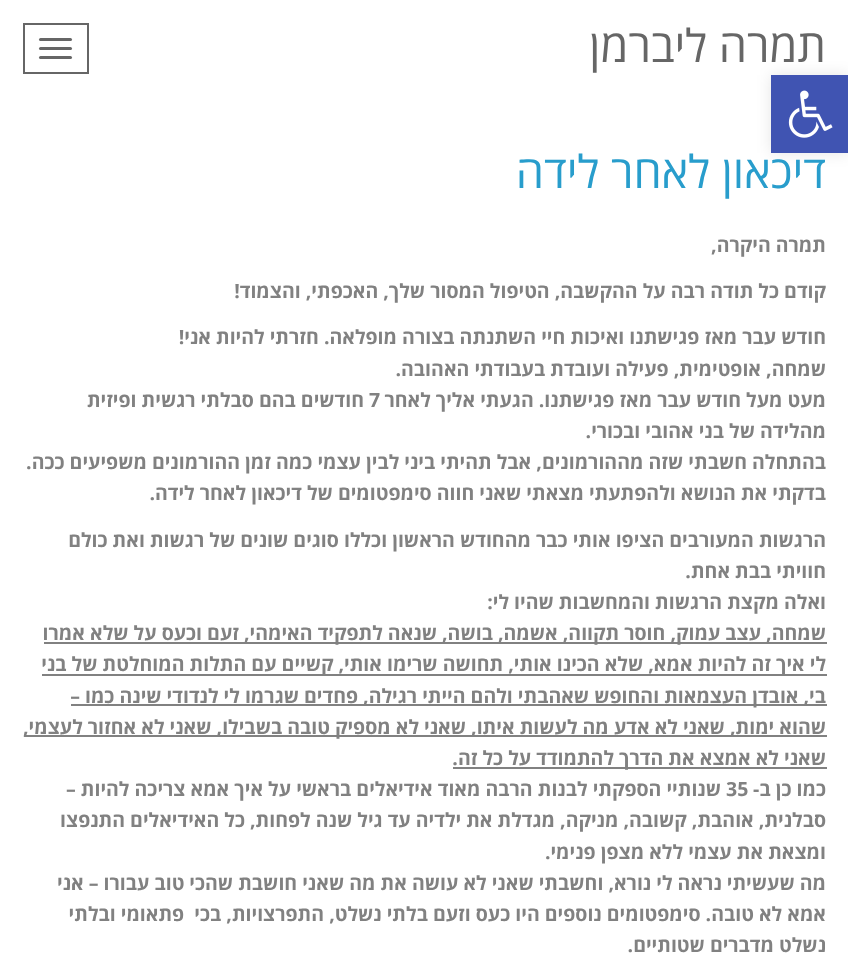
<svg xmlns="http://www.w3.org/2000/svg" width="848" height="968">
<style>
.a{font:45px Open Sans;direction:rtl;fill:#666}
.b{font:45px Open Sans;direction:rtl;fill:#289dcc}
.c{font:bold 19.5px Open Sans;direction:rtl;fill:#818181}
.d{font:bold 19.5px Open Sans;fill:#818181}
</style>
<rect width="100%" height="100%" fill="#fff"/>
<path fill="none" stroke="#666" stroke-width="2" d="M24 24h64v49H24z"/>
<rect fill="#666" x="39" y="38" width="33" height="3" rx="1.5"/>
<rect fill="#666" x="39" y="47" width="33" height="3" rx="1.5"/>
<rect fill="#666" x="39" y="56" width="33" height="3" rx="1.5"/>
<path fill="#818181" d="M44 642h783v2H44z"/>
<path fill="#818181" d="M42 674h785v2H42z"/>
<path fill="#818181" d="M71 704h756v2H71z"/>
<path fill="#818181" d="M24 735h803v2H24z"/>
<path fill="#818181" d="M453 767h374v2H453z"/>
<path fill="#0000001a" filter="blur(7.5px)" d="M771 75h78v78H771z"/>
<path fill="#4054b2" d="M771 75h77v78H771z"/>
<image href="1.png" x="788" y="90" width="45" height="48"/>
<text class="a" x="826" y="62">תמרה ליברמן</text>
<text class="b" x="826" y="188">דיכאון לאחר לידה</text>
<text class="c" x="826" y="252">תמרה היקרה,</text>
<text class="c" x="826" y="298">קודם כל תודה רבה על ההקשבה, הטיפול המסור שלך, האכפתי, והצמוד!</text>
<text class="c" x="826" y="344">חודש עבר מאז פגישתנו ואיכות חיי השתנתה בצורה מופלאה. חזרתי להיות אני!</text>
<text class="c" x="826" y="376">שמחה, אופטימית, פעילה ועובדת בעבודתי האהובה.</text>
<text class="c" x="826" y="407">מעט מעל חודש עבר מאז פגישתנו. הגעתי אליך לאחר</text>
<text class="d" x="369" y="407">7</text>
<text class="c" x="364" y="407">חודשים בהם סבלתי רגשית ופיזית</text>
<text class="c" x="826" y="438">מהלידה של בני אהובי ובכורי.</text>
<text class="c" x="826" y="469">בהתחלה חשבתי שזה מההורמונים, אבל תהיתי ביני לבין עצמי כמה זמן ההורמונים משפיעים ככה.</text>
<text class="c" x="826" y="500">בדקתי את הנושא ולהפתעתי מצאתי שאני חווה סימפטומים של דיכאון לאחר לידה.</text>
<text class="c" x="826" y="547">הרגשות המעורבים הציפו אותי כבר מהחודש הראשון וכללו סוגים שונים של רגשות ואת כולם</text>
<text class="c" x="826" y="578">חוויתי בבת אחת.</text>
<text class="c" x="826" y="609">ואלה מקצת הרגשות והמחשבות שהיו לי:</text>
<text class="c" x="826" y="640">שמחה, עצב עמוק, חוסר תקווה, אשמה, בושה, שנאה לתפקיד האימהי, זעם וכעס על שלא אמרו</text>
<text class="c" x="826" y="671">לי איך זה להיות אמא, שלא הכינו אותי, תחושה שרימו אותי, קשיים עם התלות המוחלטת של בני</text>
<text class="c" x="826" y="703">בי, אובדן העצמאות והחופש שאהבתי ולהם הייתי רגילה, פחדים שגרמו לי לנדודי שינה כמו –</text>
<text class="c" x="826" y="734">שהוא ימות, שאני לא אדע מה לעשות איתו, שאני לא מספיק טובה בשבילו, שאני לא אחזור לעצמי,</text>
<text class="c" x="826" y="765">שאני לא אמצא את הדרך להתמודד על כל זה.</text>
<text class="c" x="826" y="796">כמו כן ב-</text>
<text class="d" x="726" y="796">35</text>
<text class="c" x="721" y="796">שנותיי הספקתי לבנות הרבה מאוד אידיאלים בראשי על איך אמא צריכה להיות –</text>
<text class="c" x="826" y="827">סבלנית, אוהבת, קשובה, מניקה, מגדלת את ילדיה עד גיל שנה לפחות, כל האידיאלים התנפצו</text>
<text class="c" x="826" y="859">ומצאת את עצמי ללא מצפן פנימי.</text>
<text class="c" x="826" y="890">מה שעשיתי נראה לי נורא, וחשבתי שאני לא עושה את מה שאני חושבת שהכי טוב עבורו – אני</text>
<text class="c" xml:space="preserve" x="826" y="921">אמא לא טובה. סימפטומים נוספים היו כעס וזעם בלתי נשלט, התפרצויות, בכי  פתאומי ובלתי</text>
<text class="c" x="826" y="952">נשלט מדברים שטותיים.</text>
</svg>
